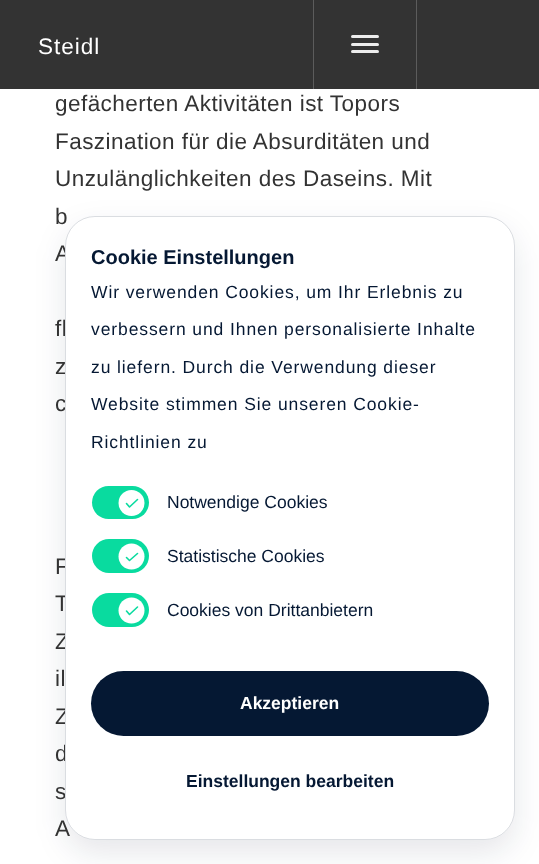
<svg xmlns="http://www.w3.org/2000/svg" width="539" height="864">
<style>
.a{font:22.5px Liberation Sans;letter-spacing:1px;fill:#fff}
.b{font:22.5px Liberation Sans;letter-spacing:0.45px;fill:#333}
.c{font:bold 20px Liberation Sans;fill:#051833}
.d{font:17.5px Liberation Sans;letter-spacing:0.9px;fill:#051833}
.e{font:17.5px Liberation Sans;fill:#051833}
.f{font:bold 17.5px Liberation Sans;fill:#fff}
.g{font:bold 17.5px Liberation Sans;fill:#051833}
</style>
<rect width="100%" height="100%" fill="#fff"/>
<path fill="#333" d="M0 0h539v89H0z"/>
<path fill="#5c5c5c" d="M416 0h1v89H416z"/>
<path fill="#5c5c5c" d="M313 0h1v89H313z"/>
<rect fill="#ececec" x="351" y="35" width="28" height="3" rx="1.5"/>
<rect fill="#ececec" x="351" y="43" width="28" height="3" rx="1.5"/>
<rect fill="#ececec" x="351" y="50" width="28" height="3" rx="1.5"/>
<rect fill="#0518331a" filter="blur(15.5px)" x="65" y="229" width="450" height="624" rx="30"/>
<text class="a" x="38" y="54">Steidl</text>
<text class="b" x="55" y="111">gefächerten Aktivitäten ist Topors</text>
<text class="b" x="55" y="149">Faszination für die Absurditäten und</text>
<text class="b" x="55" y="186">Unzulänglichkeiten des Daseins. Mit</text>
<text class="b" x="55" y="224">b</text>
<text class="b" x="55" y="261">A</text>
<text class="b" x="55" y="336">fl</text>
<text class="b" x="55" y="374">z</text>
<text class="b" x="55" y="411">c</text>
<text class="b" x="55" y="574">F</text>
<text class="b" x="55" y="611">T</text>
<text class="b" x="55" y="649">Z</text>
<text class="b" x="55" y="686">il</text>
<text class="b" x="55" y="724">Z</text>
<text class="b" x="55" y="761">d</text>
<text class="b" x="55" y="799">s</text>
<text class="b" x="55" y="836">A</text>
<rect fill="#fff" x="65" y="216" width="450" height="624" rx="30"/>
<rect fill="none" stroke="#05183326" x="65.5" y="216.5" width="449" height="623" rx="29.5"/>
<text class="c" x="91" y="264">Cookie Einstellungen</text>
<text class="d" x="91" y="298">Wir verwenden Cookies, um Ihr Erlebnis zu</text>
<text class="d" x="91" y="335">verbessern und Ihnen personalisierte Inhalte</text>
<text class="d" x="91" y="373">zu liefern. Durch die Verwendung dieser</text>
<text class="d" x="91" y="410">Website stimmen Sie unseren Cookie-</text>
<text class="d" x="91" y="448">Richtlinien zu</text>
<rect fill="#09db9f" x="92" y="486" width="57" height="33" rx="16.5"/>
<circle fill="#fff" cx="131.5" cy="503" r="13"/>
<path fill="none" stroke="#09db9f" stroke-width="1.6" stroke-linecap="round" stroke-linejoin="round" d="M126.5 503.5l3 3.5l8-7.5"/>
<text class="e" x="167" y="508">Notwendige Cookies</text>
<rect fill="#09db9f" x="92" y="539" width="57" height="34" rx="17"/>
<circle fill="#fff" cx="131.5" cy="556.5" r="13"/>
<path fill="none" stroke="#09db9f" stroke-width="1.6" stroke-linecap="round" stroke-linejoin="round" d="M126.5 557.5l3 3l8-7"/>
<text class="e" x="167" y="562">Statistische Cookies</text>
<rect fill="#09db9f" x="92" y="593" width="57" height="34" rx="17"/>
<circle fill="#fff" cx="131.5" cy="610.5" r="13"/>
<path fill="none" stroke="#09db9f" stroke-width="1.6" stroke-linecap="round" stroke-linejoin="round" d="M126.5 611l3 3.5l8-7.5"/>
<text class="e" x="167" y="616">Cookies von Drittanbietern</text>
<rect fill="#051833" x="91" y="671" width="398" height="65" rx="32.5"/>
<text class="f" x="240" y="709">Akzeptieren</text>
<text class="g" x="186" y="787">Einstellungen bearbeiten</text>
</svg>
